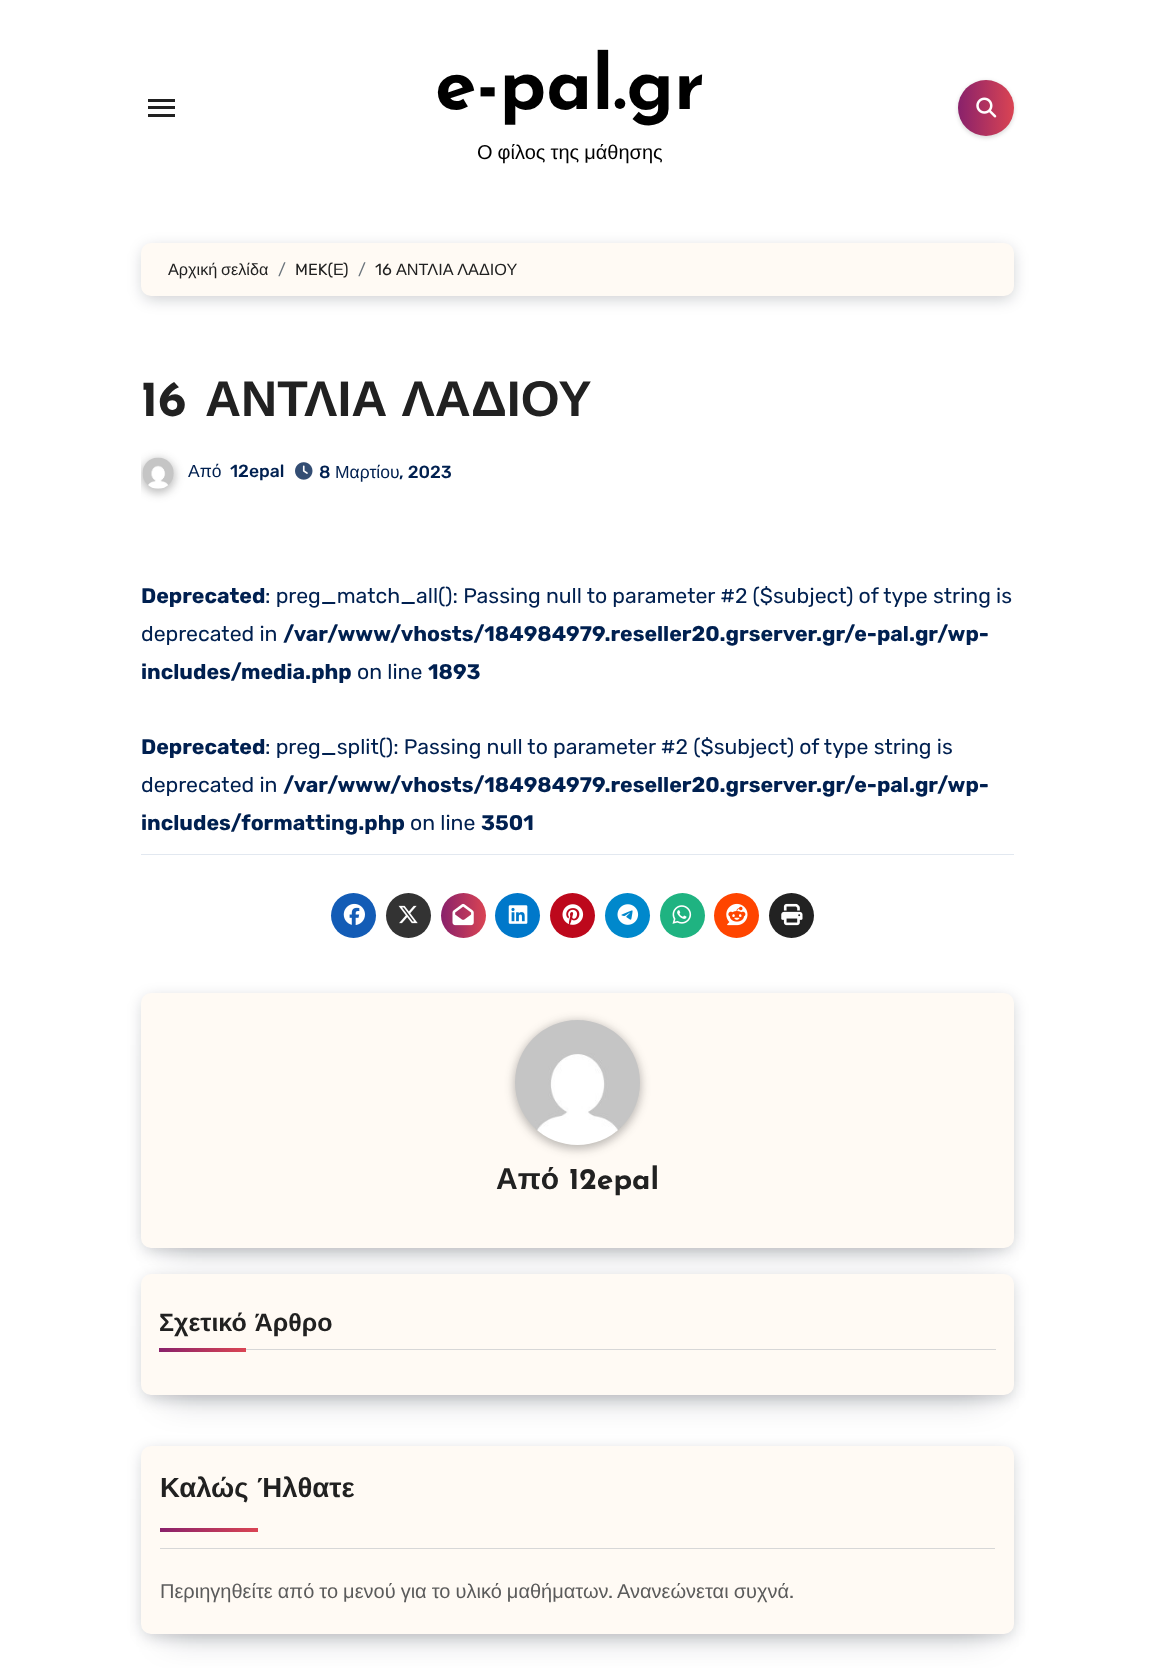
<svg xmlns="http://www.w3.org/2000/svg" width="1154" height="1668">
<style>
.a{font:bold 75px Josefin Sans;fill:#000}
.b{font:20px Liberation Sans;fill:#000}
.c{font:16.25px Liberation Sans;fill:#212121}
.d{font:300 16.25px Rubik;fill:#6c757d}
.e{font:300 16.25px Rubik;fill:#212121}
.f{font:bold 50px Josefin Sans;fill:#212121}
.g{font:bold 50px Liberation Sans;fill:#212121}
.h{font:17.5px Liberation Sans;fill:#002050}
.i{font:500 17.5px Rubik;fill:#002050}
.j{font:bold 21.25px Rubik;fill:#002050}
.k{font:300 21.25px Rubik;fill:#002050}
.l{font:bold 30px Liberation Sans;fill:#212121}
.m{font:bold 30px Josefin Sans;fill:#212121}
.n{font:bold 25px Liberation Sans;fill:#212121}
.o{font:bold 27.5px Liberation Sans;fill:#212121}
.p{font:20px Liberation Sans;fill:#5b5b5b}
.q{font:300 20px Rubik;fill:#5b5b5b}
</style>
<defs>
<linearGradient id="g1" gradientUnits="userSpaceOnUse" x1="958" y1="108" x2="1014" y2="108"><stop offset="0" stop-color="#89216b"/><stop offset="1" stop-color="#da4453"/></linearGradient>
<clipPath id="clip1"><path d="M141 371h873v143H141z"/></clipPath>
<linearGradient id="g2" gradientUnits="userSpaceOnUse" x1="441" y1="915" x2="486" y2="915"><stop offset="0" stop-color="#89216b"/><stop offset="1" stop-color="#da4453"/></linearGradient>
<linearGradient id="g3" gradientUnits="userSpaceOnUse" x1="159" y1="1349" x2="246" y2="1349"><stop offset="0" stop-color="#89216b"/><stop offset="1" stop-color="#da4453"/></linearGradient>
<linearGradient id="g4" gradientUnits="userSpaceOnUse" x1="160" y1="1529" x2="258" y2="1529"><stop offset="0" stop-color="#89216b"/><stop offset="1" stop-color="#da4453"/></linearGradient>
</defs>
<rect width="100%" height="100%" fill="#fff"/>
<path fill="#212121" d="M148 99h27v3H148z"/>
<path fill="#212121" d="M148 106h27v3H148z"/>
<path fill="#212121" d="M148 114h27v3H148z"/>
<rect fill="#00000026" filter="blur(2px)" x="958" y="81" width="56" height="57" rx="28"/>
<circle fill="url(#g1)" cx="986" cy="108" r="28"/>
<image href="1.png" x="976" y="97" width="21" height="21"/>
<rect fill="#070a1933" filter="blur(7.5px)" x="143" y="248" width="870" height="51" rx="9"/>
<rect fill="#fffaf4" x="141" y="243" width="873" height="53" rx="10"/>
<g clip-path="url(#clip1)">
<rect fill="#2121214d" filter="blur(5px)" x="141" y="459" width="34" height="34" rx="17"/>
</g>
<image href="2.png" x="142" y="457" width="32" height="32"/>
<image href="3.png" x="295" y="462" width="18" height="18"/>
<path fill="#e2e8f0" d="M141 854h873v1H141z"/>
<circle fill="#135cb6" cx="353.5" cy="915.5" r="22.5"/>
<image href="4.png" x="343" y="903" width="22" height="22"/>
<circle fill="#333" cx="408.5" cy="915.5" r="22.5"/>
<image href="5.png" x="398" y="905" width="20" height="19"/>
<circle fill="url(#g2)" cx="463.5" cy="915.5" r="22.5"/>
<image href="6.png" x="452" y="903" width="22" height="23"/>
<circle fill="#0078ca" cx="517.5" cy="915.5" r="22.5"/>
<image href="7.png" x="508" y="905" width="20" height="19"/>
<circle fill="#bd081c" cx="572.5" cy="915.5" r="22.5"/>
<image href="8.png" x="562" y="904" width="22" height="21"/>
<circle fill="#08c" cx="627.5" cy="915.5" r="22.5"/>
<image href="9.png" x="617" y="904" width="22" height="21"/>
<circle fill="#1fb381" cx="682.5" cy="915.5" r="22.5"/>
<image href="10.png" x="672" y="905" width="20" height="19"/>
<circle fill="#ff4500" cx="736.5" cy="915.5" r="22.5"/>
<image href="11.png" x="726" y="903" width="22" height="23"/>
<circle fill="#222" cx="791.5" cy="915.5" r="22.5"/>
<image href="12.png" x="781" y="903" width="22" height="23"/>
<path fill="#070a1933" filter="blur(17px)" d="M166 1045h823v205H166z"/>
<rect fill="#070a1933" filter="blur(7.5px)" x="143" y="998" width="870" height="252" rx="9"/>
<rect fill="#fffaf4" x="141" y="993" width="873" height="255" rx="10"/>
<rect fill="#2121214d" filter="blur(5px)" x="514" y="1021" width="127" height="128" rx="63.5"/>
<image href="13.png" x="515" y="1020" width="125" height="125"/>
<path fill="#070a1933" filter="blur(17px)" d="M166 1326h823v72H166z"/>
<rect fill="#070a1933" filter="blur(7.5px)" x="143" y="1279" width="870" height="119" rx="9"/>
<rect fill="#fffaf4" x="141" y="1274" width="873" height="121" rx="10"/>
<path fill="#d7d7d7" d="M246 1349h750v1H246z"/>
<path fill="url(#g3)" d="M159 1348h87v4H159z"/>
<path fill="#070a1933" filter="blur(17px)" d="M166 1499h823v137H166z"/>
<rect fill="#070a1933" filter="blur(7.5px)" x="143" y="1451" width="870" height="185" rx="9"/>
<rect fill="#fffaf4" x="141" y="1446" width="873" height="188" rx="10"/>
<path fill="#d7d7d7" d="M160 1548h835v1H160z"/>
<path fill="url(#g4)" d="M160 1528h98v4H160z"/>
<text class="a" x="435" y="109">e-pal.gr</text>
<text class="b" x="477" y="159" word-spacing="-0.5">Ο φίλος της μάθησης</text>
<text class="c" x="168" y="275" word-spacing="-1">Αρχική σελίδα</text>
<text class="d" x="278" y="275">/</text>
<text class="e" x="295" y="275">MEK(</text>
<text class="c" x="333" y="275">Ε</text>
<text class="e" x="343" y="275">)</text>
<text class="d" x="358" y="275">/</text>
<text class="e" x="375" y="275">16</text>
<text class="c" x="396" y="275" word-spacing="1">ΑΝΤΛΙΑ ΛΑΔΙΟΥ</text>
<text class="f" x="141" y="416">16</text>
<text class="g" x="205" y="416" word-spacing="2">ΑΝΤΛΙΑ ΛΑΔΙΟΥ</text>
<text class="h" x="188" y="477">Από</text>
<text class="i" x="230" y="477">12epal</text>
<text class="i" x="319" y="478">8</text>
<text class="h" x="335" y="478">Μαρτίου</text>
<text class="i" x="399" y="478">, 2023</text>
<text class="j" x="141" y="603">Deprecated</text>
<text class="k" x="265" y="603">: preg_match_all(): Passing null to parameter #2 ($subject) of type string is</text>
<text class="k" x="141" y="641">deprecated in</text>
<text class="j" x="283" y="641">/var/www/vhosts/184984979.reseller20.grserver.gr/e-pal.gr/wp-</text>
<text class="j" x="141" y="679">includes/media.php</text>
<text class="k" x="357" y="679">on line</text>
<text class="j" x="428" y="679">1893</text>
<text class="j" x="141" y="754">Deprecated</text>
<text class="k" x="265" y="754">: preg_split(): Passing null to parameter #2 ($subject) of type string is</text>
<text class="k" x="141" y="792">deprecated in</text>
<text class="j" x="283" y="792">/var/www/vhosts/184984979.reseller20.grserver.gr/e-pal.gr/wp-</text>
<text class="j" x="141" y="830">includes/formatting.php</text>
<text class="k" x="410" y="830">on line</text>
<text class="j" x="481" y="830">3501</text>
<text class="l" x="496" y="1189">Από</text>
<text class="m" x="569" y="1189">12epal</text>
<text class="n" x="159" y="1331" word-spacing="2">Σχετικό Άρθρο</text>
<text class="o" x="160" y="1497" word-spacing="1">Καλώς Ήλθατε</text>
<text class="p" x="160" y="1598" word-spacing="-0.5">Περιηγηθείτε από το μενού για το υλικό μαθήματων</text>
<text class="q" x="608" y="1598">.</text>
<text class="p" x="617" y="1598" word-spacing="-0.5">Ανανεώνεται συχνά</text>
<text class="q" x="789" y="1598">.</text>
</svg>
